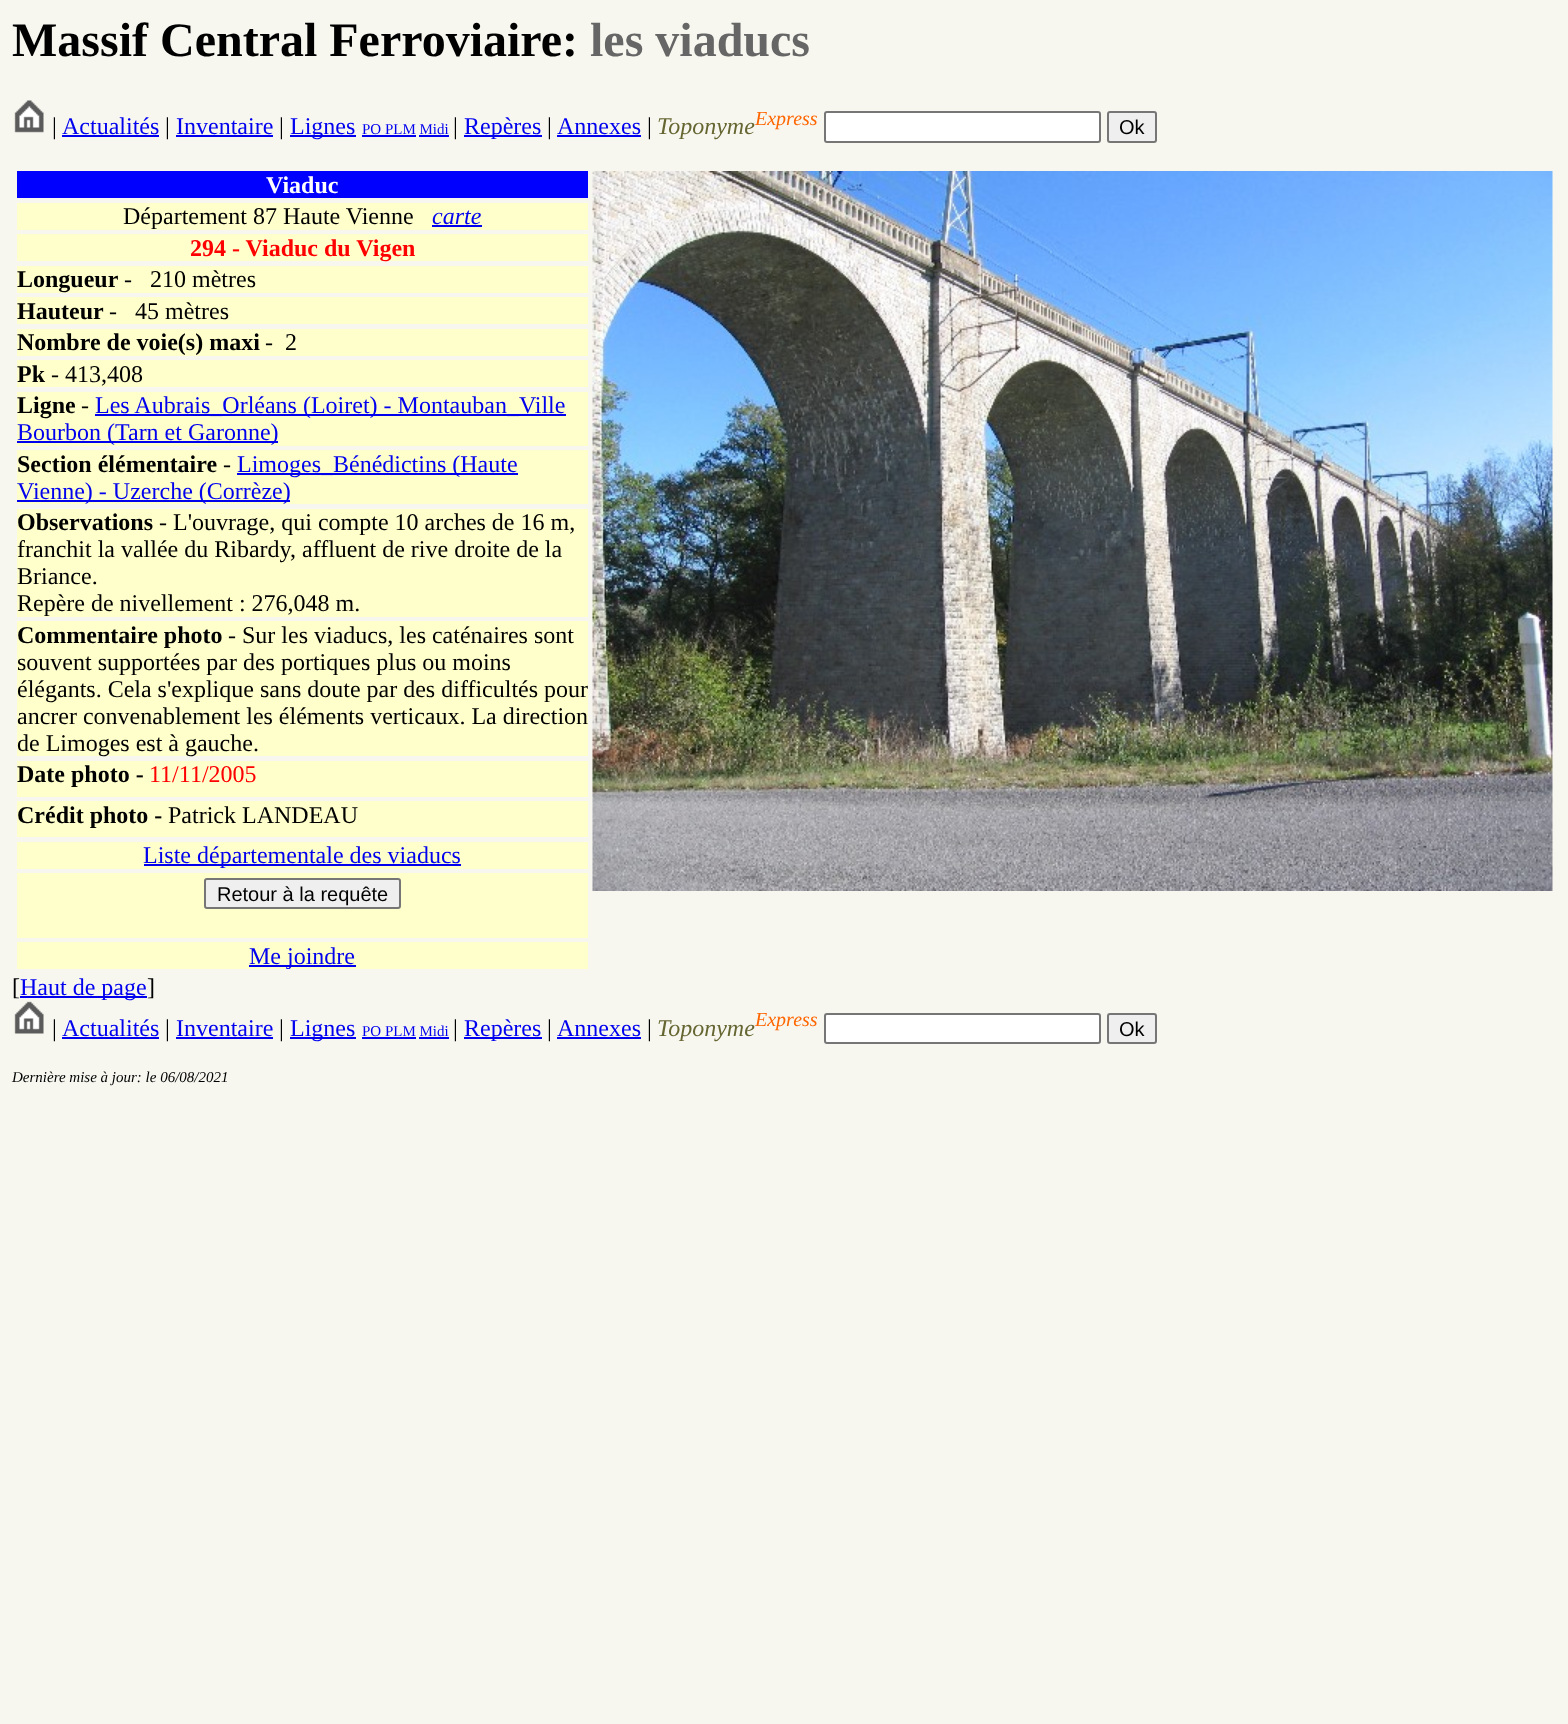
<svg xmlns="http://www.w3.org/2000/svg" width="1568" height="1724">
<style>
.a{font:bold 48px Liberation Serif;fill:#000}
.b{font:bold 48px Liberation Serif;fill:#666}
.c{font:24px Liberation Serif;fill:#000}
.d{font:24px Liberation Serif;fill:#00e}
.e{font:15px Liberation Serif;fill:#00e}
.f{font:italic 24px Liberation Serif;fill:#663}
.g{font:italic 20px Liberation Serif;fill:#f60}
.h{font:20px Liberation Sans;fill:#000}
.i{font:bold 24px Liberation Serif;fill:#fff}
.j{font:italic 24px Liberation Serif;fill:#00e}
.k{font:bold 24px Liberation Serif;fill:#f00}
.l{font:bold 24px Liberation Serif;fill:#000}
.m{font:24px Liberation Serif;fill:#f00}
.n{font:italic 15px Liberation Serif;fill:#000}
</style>
<rect width="100%" height="100%" fill="#f7f7f0"/>
<image href="1.png" x="14" y="100" width="30" height="33"/>
<path fill="#00e" d="M62 135h97v2H62z"/>
<path fill="#00e" d="M176 135h97v2H176z"/>
<path fill="#00e" d="M290 135h66v2H290z"/>
<path fill="#00e" d="M362 135h54v2H362z"/>
<path fill="#00e" d="M419 135h30v2H419z"/>
<path fill="#00e" d="M464 135h78v2H464z"/>
<path fill="#00e" d="M557 135h84v2H557z"/>
<rect fill="#fff" stroke="#767676" stroke-width="2" x="825" y="112" width="275" height="30" rx="2"/>
<rect fill="#efefef" stroke="#767676" stroke-width="2" x="1108" y="112" width="48" height="30" rx="2"/>
<path fill="#00f" d="M17 171h571v27H17z"/>
<image href="2.png" x="592" y="171" width="961" height="720"/>
<path fill="#ffc" d="M17 203h571v27H17z"/>
<path fill="#00e" d="M432 225h50v2H432z"/>
<path fill="#ffc" d="M17 234h571v27H17z"/>
<path fill="#ffc" d="M17 266h571v27H17z"/>
<path fill="#ffc" d="M17 297h571v27H17z"/>
<path fill="#ffc" d="M17 329h571v27H17z"/>
<path fill="#ffc" d="M17 360h571v27H17z"/>
<path fill="#ffc" d="M17 392h571v54H17z"/>
<path fill="#00e" d="M95 414h471v2H95z"/>
<path fill="#00e" d="M17 441h261v2H17z"/>
<path fill="#ffc" d="M17 450h571v54H17z"/>
<path fill="#00e" d="M237 473h281v2H237z"/>
<path fill="#00e" d="M17 500h273v2H17z"/>
<path fill="#ffc" d="M17 509h571v108H17z"/>
<path fill="#ffc" d="M17 621h571v135H17z"/>
<path fill="#ffc" d="M17 761h571v36H17z"/>
<path fill="#ffc" d="M17 801h571v36H17z"/>
<path fill="#ffc" d="M17 842h571v27H17z"/>
<path fill="#00e" d="M144 864h317v2H144z"/>
<path fill="#ffc" d="M17 873h571v65H17z"/>
<rect fill="#efefef" stroke="#767676" stroke-width="2" x="205" y="879" width="195" height="29" rx="2"/>
<path fill="#ffc" d="M17 942h571v27H17z"/>
<path fill="#00e" d="M249 965h107v2H249z"/>
<path fill="#00e" d="M20 996h127v2H20z"/>
<image href="3.png" x="14" y="1001" width="30" height="33"/>
<path fill="#00e" d="M62 1037h97v2H62z"/>
<path fill="#00e" d="M176 1037h97v2H176z"/>
<path fill="#00e" d="M290 1037h66v2H290z"/>
<path fill="#00e" d="M362 1037h54v2H362z"/>
<path fill="#00e" d="M419 1037h30v2H419z"/>
<path fill="#00e" d="M464 1037h78v2H464z"/>
<path fill="#00e" d="M557 1037h84v2H557z"/>
<rect fill="#fff" stroke="#767676" stroke-width="2" x="825" y="1014" width="275" height="29" rx="2"/>
<rect fill="#efefef" stroke="#767676" stroke-width="2" x="1108" y="1014" width="48" height="29" rx="2"/>
<text class="a" x="12" y="56">Massif Central Ferroviaire:</text>
<text class="b" x="590" y="56">les viaducs</text>
<text class="c" x="52" y="134">|</text>
<text class="d" x="62" y="134">Actualités</text>
<text class="c" x="165" y="134">|</text>
<text class="d" x="176" y="134">Inventaire</text>
<text class="c" x="279" y="134">|</text>
<text class="d" x="290" y="134">Lignes</text>
<text class="e" x="362" y="134">PO PLM Midi</text>
<text class="c" x="453" y="134">|</text>
<text class="d" x="464" y="134">Repères</text>
<text class="c" x="547" y="134">|</text>
<text class="d" x="557" y="134">Annexes</text>
<text class="c" x="647" y="134">|</text>
<text class="f" x="657" y="134">Toponyme</text>
<text class="g" x="755" y="125">Express</text>
<text class="h" x="1119" y="134">Ok</text>
<text class="i" x="266" y="193">Viaduc</text>
<text class="c" x="123" y="224">Département 87 Haute Vienne</text>
<text class="j" x="432" y="224">carte</text>
<text class="k" x="190" y="256">294 - Viaduc du Vigen</text>
<text class="l" x="17" y="287">Longueur</text>
<text class="c" x="124" y="287">-</text>
<text class="c" x="150" y="287">210 mètres</text>
<text class="l" x="17" y="319">Hauteur</text>
<text class="c" x="109" y="319">-</text>
<text class="c" x="135" y="319">45 mètres</text>
<text class="l" x="17" y="350">Nombre de voie(s) maxi</text>
<text class="c" xml:space="preserve" x="265" y="350">-  2</text>
<text class="l" x="17" y="382">Pk</text>
<text class="c" x="51" y="382">- 413,408</text>
<text class="l" x="17" y="413">Ligne</text>
<text class="c" x="81" y="413">-</text>
<text class="d" x="95" y="413">Les Aubrais_Orléans (Loiret) - Montauban_Ville</text>
<text class="d" x="17" y="440">Bourbon (Tarn et Garonne)</text>
<text class="l" x="17" y="472">Section élémentaire</text>
<text class="c" x="223" y="472">-</text>
<text class="d" x="237" y="472">Limoges_Bénédictins (Haute</text>
<text class="d" x="17" y="499">Vienne) - Uzerche (Corrèze)</text>
<text class="l" x="17" y="530">Observations</text>
<text class="c" x="159" y="530">- L'ouvrage, qui compte 10 arches de 16 m,</text>
<text class="c" x="17" y="557">franchit la vallée du Ribardy, affluent de rive droite de la</text>
<text class="c" x="17" y="584">Briance.</text>
<text class="c" x="17" y="611">Repère de nivellement : 276,048 m.</text>
<text class="l" x="17" y="643">Commentaire photo</text>
<text class="c" x="228" y="643">- Sur les viaducs, les caténaires sont</text>
<text class="c" x="17" y="670">souvent supportées par des portiques plus ou moins</text>
<text class="c" x="17" y="697">élégants. Cela s'explique sans doute par des difficultés pour</text>
<text class="c" x="17" y="724">ancrer convenablement les éléments verticaux. La direction</text>
<text class="c" x="17" y="751">de Limoges est à gauche.</text>
<text class="l" x="17" y="782">Date photo -</text>
<text class="m" x="149" y="782">11/11/2005</text>
<text class="l" x="17" y="823">Crédit photo -</text>
<text class="c" x="168" y="823">Patrick LANDEAU</text>
<text class="d" x="143" y="863">Liste départementale des viaducs</text>
<text class="h" x="217" y="901">Retour à la requête</text>
<text class="d" x="249" y="964">Me joindre</text>
<text class="c" x="12" y="995">[</text>
<text class="d" x="20" y="995">Haut de page</text>
<text class="c" x="147" y="995">]</text>
<text class="c" x="52" y="1036">|</text>
<text class="d" x="62" y="1036">Actualités</text>
<text class="c" x="165" y="1036">|</text>
<text class="d" x="176" y="1036">Inventaire</text>
<text class="c" x="279" y="1036">|</text>
<text class="d" x="290" y="1036">Lignes</text>
<text class="e" x="362" y="1036">PO PLM Midi</text>
<text class="c" x="453" y="1036">|</text>
<text class="d" x="464" y="1036">Repères</text>
<text class="c" x="547" y="1036">|</text>
<text class="d" x="557" y="1036">Annexes</text>
<text class="c" x="647" y="1036">|</text>
<text class="f" x="657" y="1036">Toponyme</text>
<text class="g" x="755" y="1026">Express</text>
<text class="h" x="1119" y="1036">Ok</text>
<text class="n" x="12" y="1082">Dernière mise à jour: le 06/08/2021</text>
</svg>
